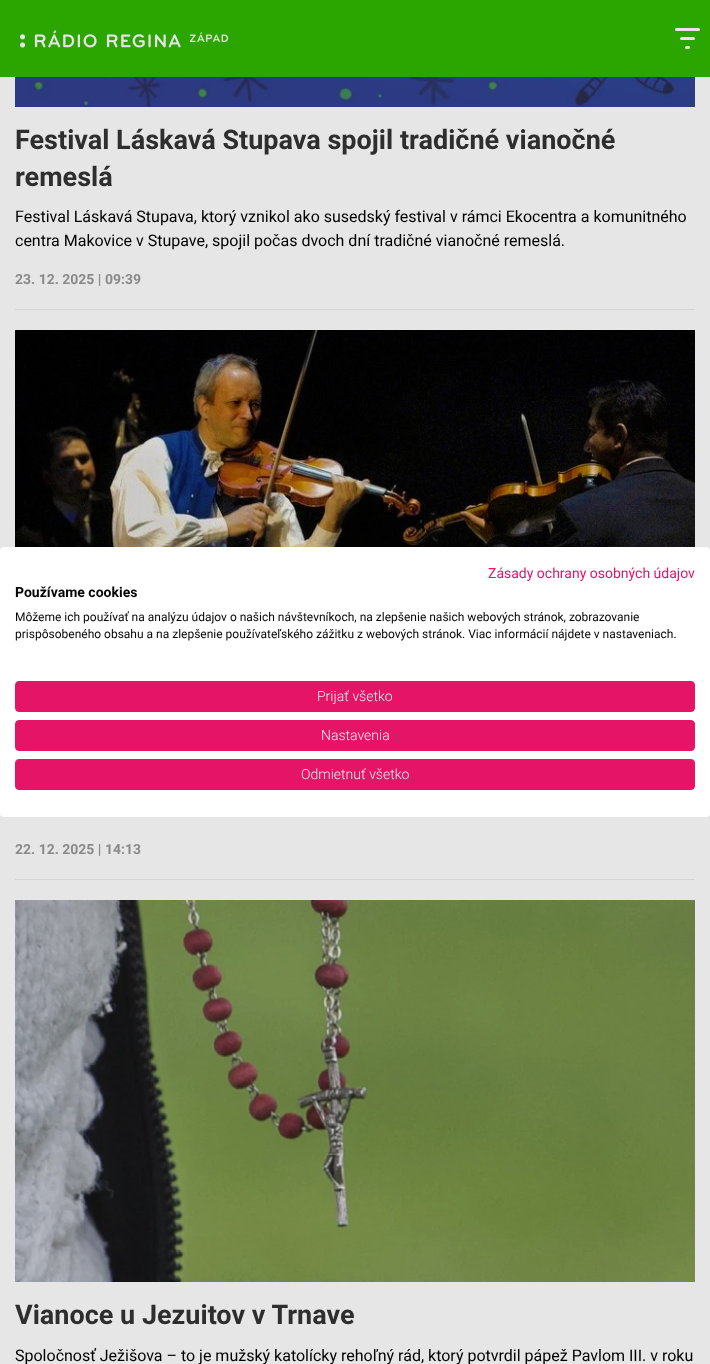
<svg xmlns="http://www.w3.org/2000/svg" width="710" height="1364">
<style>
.a{font:bold 27px Roboto;fill:#2e2e2e}
.b{font:16px Roboto;fill:#000}
.c{font:bold 14px Roboto;fill:#8a8a8a}
.d{font:14px Roboto;fill:#e51467}
.e{font:bold 14px Roboto;fill:#060606}
.f{font:12px Roboto;fill:#060606}
.g{font:300 14px Roboto;fill:#f1f1f1}
</style>
<rect width="100%" height="100%" fill="#e6e6e6"/>
<path fill="#2ba500" d="M0 0h710v77H0z"/>
<image href="1.png" x="20" y="30" width="208" height="18"/>
<rect fill="#e6e6e6" x="675" y="28" width="25" height="3" rx="1.5"/>
<rect fill="#e6e6e6" x="680" y="37" width="15" height="3" rx="1.5"/>
<rect fill="#e6e6e6" x="685" y="46" width="5" height="3" rx="1.5"/>
<path fill="#d4d4d4" d="M15 309h680v1H15z"/>
<image href="2.png" x="15" y="77" width="680" height="30"/>
<path fill="#d4d4d4" d="M15 879h680v1H15z"/>
<image href="3.png" x="15" y="330" width="680" height="217"/>
<image href="4.png" x="15" y="900" width="680" height="382"/>
<rect fill="#fff" y="547" width="710" height="270" rx="4"/>
<rect fill="#e51467" stroke="#e51467" x="15.5" y="681.5" width="679" height="30" rx="3.5"/>
<rect fill="#e51467" stroke="#e51467" x="15.5" y="720.5" width="679" height="30" rx="3.5"/>
<rect fill="#e51467" stroke="#e51467" x="15.5" y="759.5" width="679" height="30" rx="3.5"/>
<text class="a" x="15" y="149">Festival Láskavá Stupava spojil tradičné vianočné</text>
<text class="a" x="15" y="186">remeslá</text>
<text class="b" x="15" y="222">Festival Láskavá Stupava, ktorý vznikol ako susedský festival v rámci Ekocentra a komunitného</text>
<text class="b" x="15" y="246">centra Makovice v Stupave, spojil počas dvoch dní tradičné vianočné remeslá.</text>
<text class="c" x="15" y="284">23. 12. 2025 | 09:39</text>
<text class="c" x="15" y="854">22. 12. 2025 | 14:13</text>
<text class="a" x="15" y="1324">Vianoce u Jezuitov v Trnave</text>
<text class="b" x="15" y="1361">Spoločnosť Ježišova – to je mužský katolícky rehoľný rád, ktorý potvrdil pápež Pavlom III. v roku</text>
<text class="d" x="488" y="578">Zásady ochrany osobných údajov</text>
<text class="e" x="15" y="597">Používame cookies</text>
<text class="f" x="15" y="621">Môžeme ich používať na analýzu údajov o našich návštevníkoch, na zlepšenie našich webových stránok, zobrazovanie</text>
<text class="f" x="15" y="638">prispôsobeného obsahu a na zlepšenie používateľského zážitku z webových stránok. Viac informácií nájdete v nastaveniach.</text>
<text class="g" x="317" y="701">Prijať všetko</text>
<text class="g" x="321" y="740">Nastavenia</text>
<text class="g" x="301" y="779">Odmietnuť všetko</text>
</svg>
